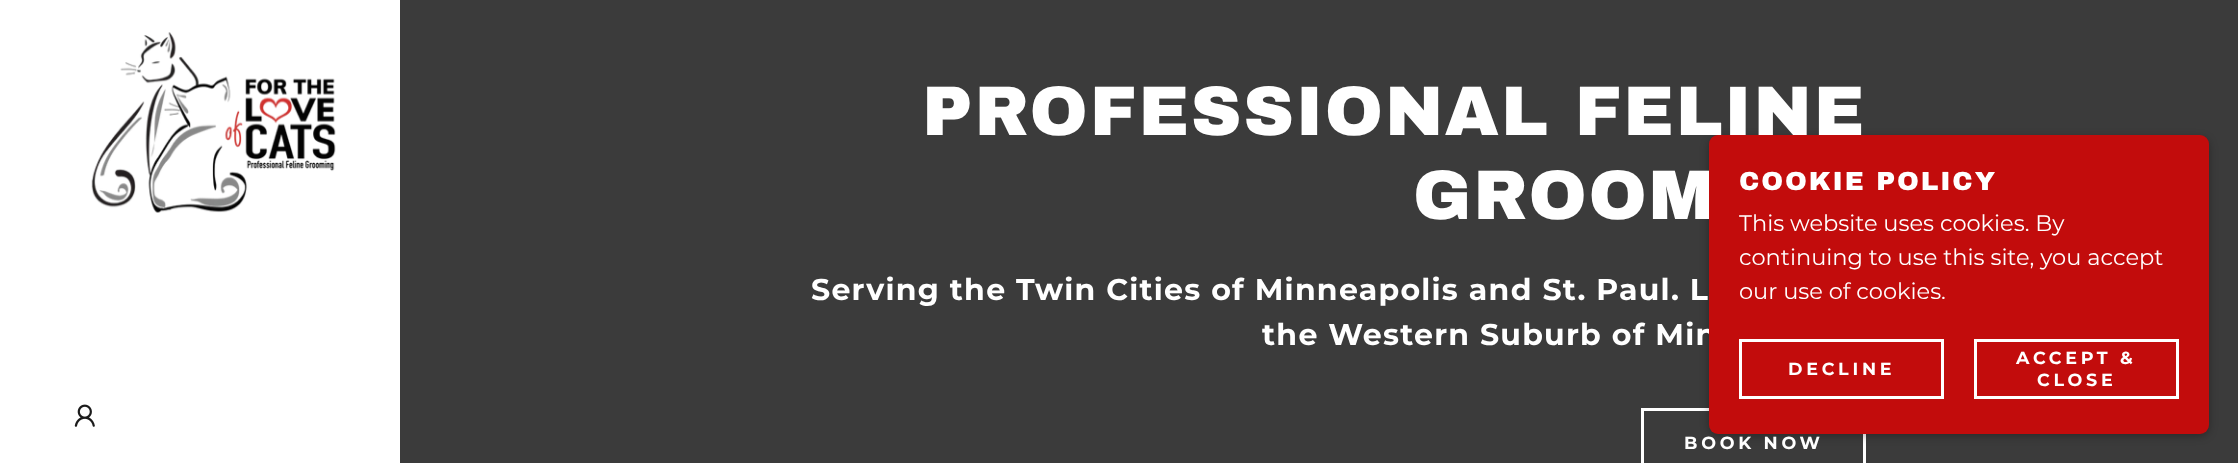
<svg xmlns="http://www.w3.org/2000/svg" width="2238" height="463">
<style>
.a{font:900 70px Archivo Black;letter-spacing:1.9px;fill:#fff}
.b{font:bold 30px Montserrat;letter-spacing:1.25px;fill:#fff}
.c{font:bold 17.5px Montserrat;letter-spacing:3.75px;fill:#fff}
.d{font:900 26.25px Archivo Black;letter-spacing:1.9px;fill:#fff}
.e{font:22.5px Montserrat;fill:#fff}
</style>
<rect width="100%" height="100%" fill="#fff"/>
<image href="1.png" x="91" y="32" width="245" height="181"/>
<image href="2.png" x="74" y="404" width="21" height="23"/>
<path fill="#3b3b3b" d="M400 0h1838v463H400z"/>
<path fill="none" stroke="#fff" stroke-width="3" d="M1642.5 409.5h222v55H1642.5z"/>
<rect fill="#0000004d" filter="blur(4px)" x="1709" y="138" width="500" height="298" rx="9"/>
<text class="a" x="922" y="135">PROFESSIONAL FELINE</text>
<text class="a" x="1413" y="219">GROOM</text>
<text class="b" x="811" y="300">Serving the Twin Cities of Minneapolis and St. Paul. L</text>
<text class="b" x="1262" y="345">the Western Suburb of Min</text>
<text class="c" x="1684" y="449">BOOK NOW</text>
<rect fill="#c20c0c" x="1709" y="135" width="500" height="299" rx="9"/>
<text class="d" x="1739" y="190">COOKIE POLICY</text>
<text class="e" x="1739" y="231">This website uses cookies. By</text>
<text class="e" x="1739" y="265">continuing to use this site, you accept</text>
<text class="e" x="1739" y="299">our use of cookies.</text>
<path fill="none" stroke="#fff" stroke-width="3" d="M1740.5 340.5h202v57H1740.5z"/>
<text class="c" x="1788" y="375">DECLINE</text>
<path fill="none" stroke="#fff" stroke-width="3" d="M1975.5 340.5h202v57H1975.5z"/>
<text class="c" x="2016" y="364">ACCEPT &amp;</text>
<text class="c" x="2037" y="386">CLOSE</text>
</svg>
